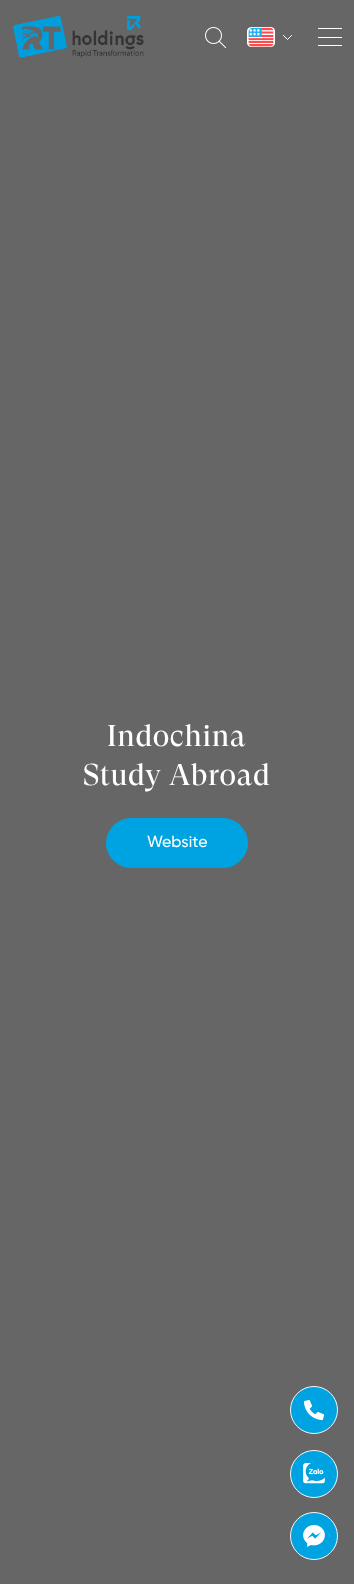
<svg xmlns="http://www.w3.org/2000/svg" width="354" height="1584">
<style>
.a{font:30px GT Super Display;letter-spacing:0.6px;fill:#fff}
.b{font:500 16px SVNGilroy;fill:#fff}
</style>
<rect width="100%" height="100%" fill="#666"/>
<image href="1.png" x="13" y="16" width="131" height="42"/>
<image href="2.png" x="205" y="27" width="22" height="22"/>
<image href="3.png" x="247" y="27" width="28" height="20"/>
<path fill="none" stroke="#fff" stroke-linecap="square" d="M291.5 35.5l-4 4l-4-4"/>
<path fill="#fff" d="M318 28h24v1H318z"/>
<path fill="#fff" d="M318 37h24v1H318z"/>
<path fill="#fff" d="M318 45h24v1H318z"/>
<rect fill="#00a3e1" stroke="#00a3e1" x="106.5" y="818.5" width="141" height="49" rx="24.5"/>
<circle fill="#00a3e1" stroke="#f5f5f5" cx="314" cy="1410" r="23.5"/>
<image href="4.png" x="303" y="1400" width="21" height="21"/>
<circle fill="#00a3e1" stroke="#f5f5f5" cx="314" cy="1474" r="23.5"/>
<image href="5.png" x="303" y="1463" width="22" height="21"/>
<circle fill="#00a3e1" stroke="#f5f5f5" cx="314" cy="1536" r="23.5"/>
<image href="6.png" x="303" y="1525" width="22" height="22"/>
<text class="a" x="107" y="746">Indochina</text>
<text class="a" x="83" y="785">Study Abroad</text>
<text class="b" x="147" y="847">Website</text>
</svg>
